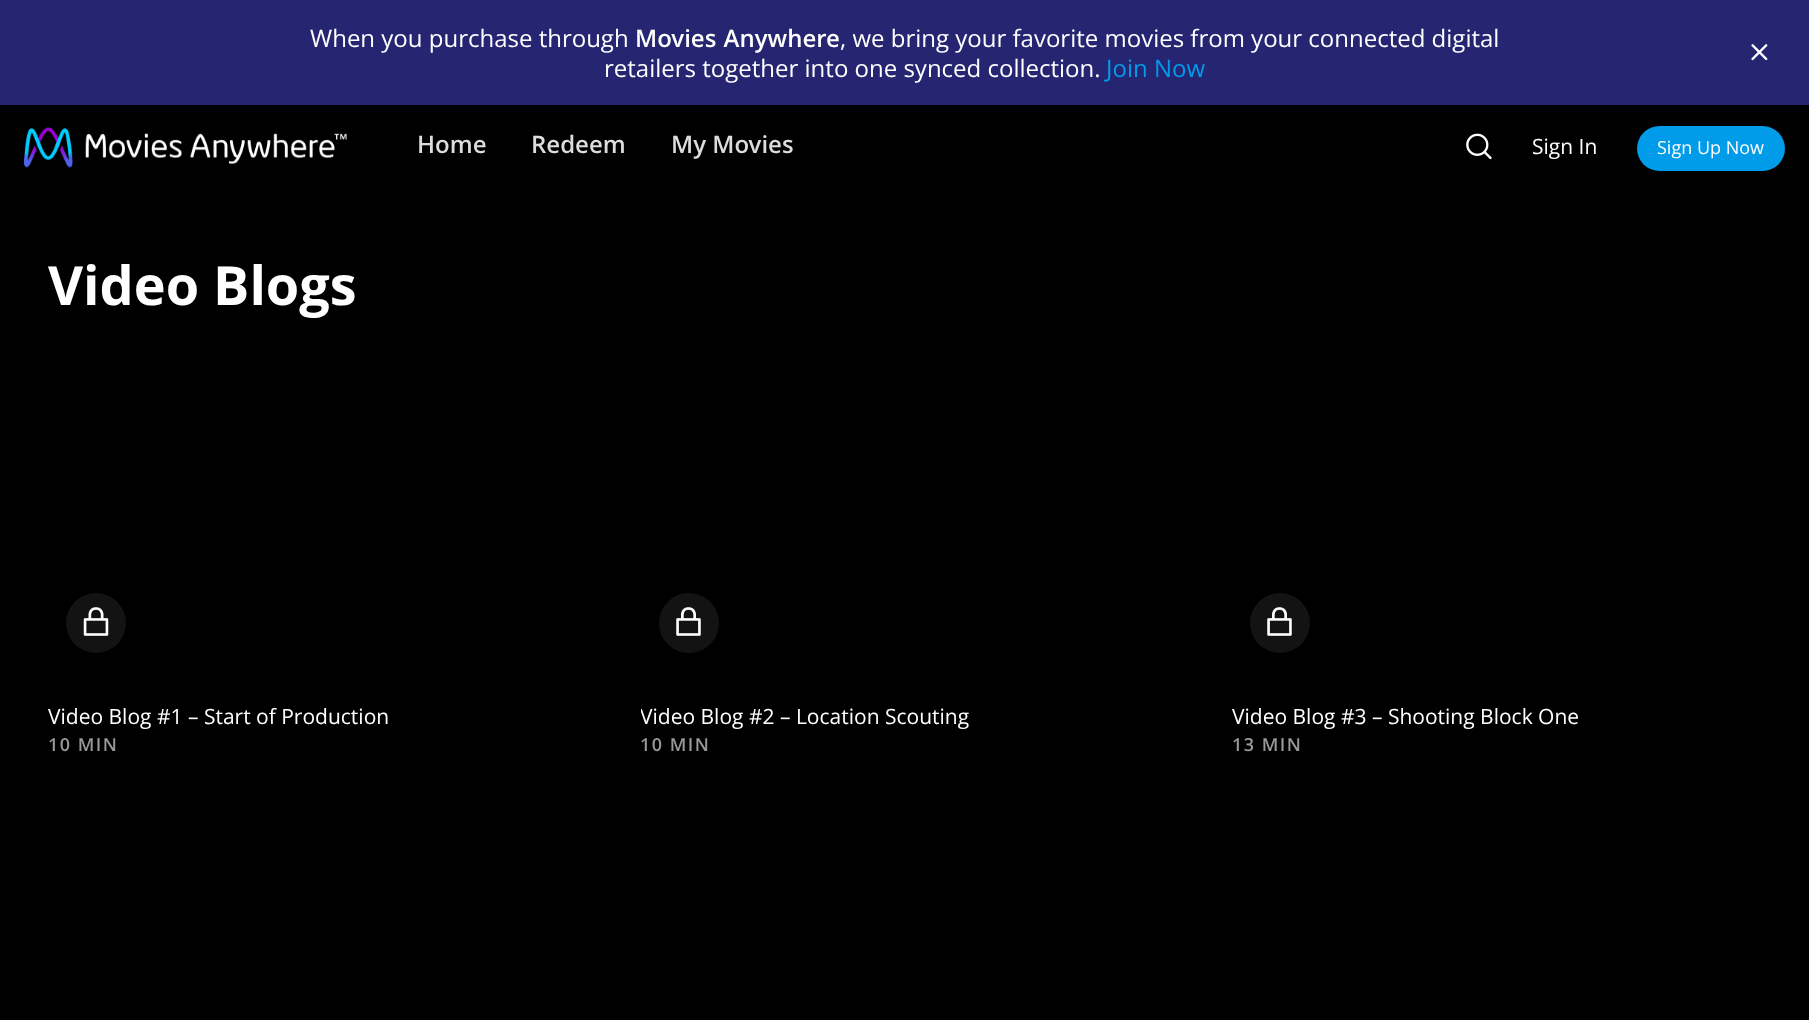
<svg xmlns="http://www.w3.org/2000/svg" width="1809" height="1020">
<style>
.a{font:24px Open Sans;fill:#fff}
.b{font:600 24px Open Sans;fill:#fff}
.c{font:24px Open Sans;fill:#009cea}
.d{font:600 24px Open Sans;fill:#dcdcdc}
.e{font:21px Open Sans;fill:#fff}
.f{font:18px Open Sans;fill:#fff}
.g{font:bold 54px Open Sans;fill:#fff}
.h{font:600 18px Open Sans;letter-spacing:1.5px;fill:#999}
</style>
<defs>
<clipPath id="clip1"><path d="M641 699h528v32H641z"/></clipPath>
</defs>
<rect width="100%" height="100%" fill="#000"/>
<path fill="#262571" d="M0 0h1809v105H0z"/>
<image href="1.png" x="1751" y="44" width="17" height="17"/>
<image href="2.png" x="24" y="127" width="323" height="41"/>
<image href="3.png" x="1466" y="133" width="26" height="27"/>
<rect fill="#009cea" x="1637" y="126" width="148" height="45" rx="22.5"/>
<circle fill="#131313" cx="96" cy="623" r="30"/>
<image href="4.png" x="83" y="607" width="26" height="29"/>
<circle fill="#131313" cx="689" cy="623" r="30"/>
<image href="5.png" x="676" y="607" width="25" height="29"/>
<circle fill="#131313" cx="1280" cy="623" r="30"/>
<image href="5.png" x="1267" y="607" width="25" height="29"/>
<text class="a" x="310" y="47">When you purchase through</text>
<text class="b" x="635" y="47" word-spacing="1">Movies Anywhere</text>
<text class="a" x="840" y="47">, we bring your favorite movies from your connected digital</text>
<text class="a" x="604" y="77">retailers together into one synced collection.</text>
<text class="c" x="1106" y="77">Join Now</text>
<text class="d" x="417" y="153">Home</text>
<text class="d" x="531" y="153">Redeem</text>
<text class="d" x="671" y="153">My Movies</text>
<text class="e" x="1532" y="154">Sign In</text>
<text class="f" x="1657" y="154">Sign Up Now</text>
<text class="g" x="48" y="305">Video Blogs</text>
<text class="e" x="48" y="724">Video Blog #1 – Start of Production</text>
<text class="h" x="48" y="751">10 MIN</text>
<g clip-path="url(#clip1)">
<text class="e" x="640" y="724">Video Blog #2 – Location Scouting</text>
</g>
<text class="h" x="640" y="751">10 MIN</text>
<text class="e" x="1232" y="724">Video Blog #3 – Shooting Block One</text>
<text class="h" x="1232" y="751">13 MIN</text>
</svg>
